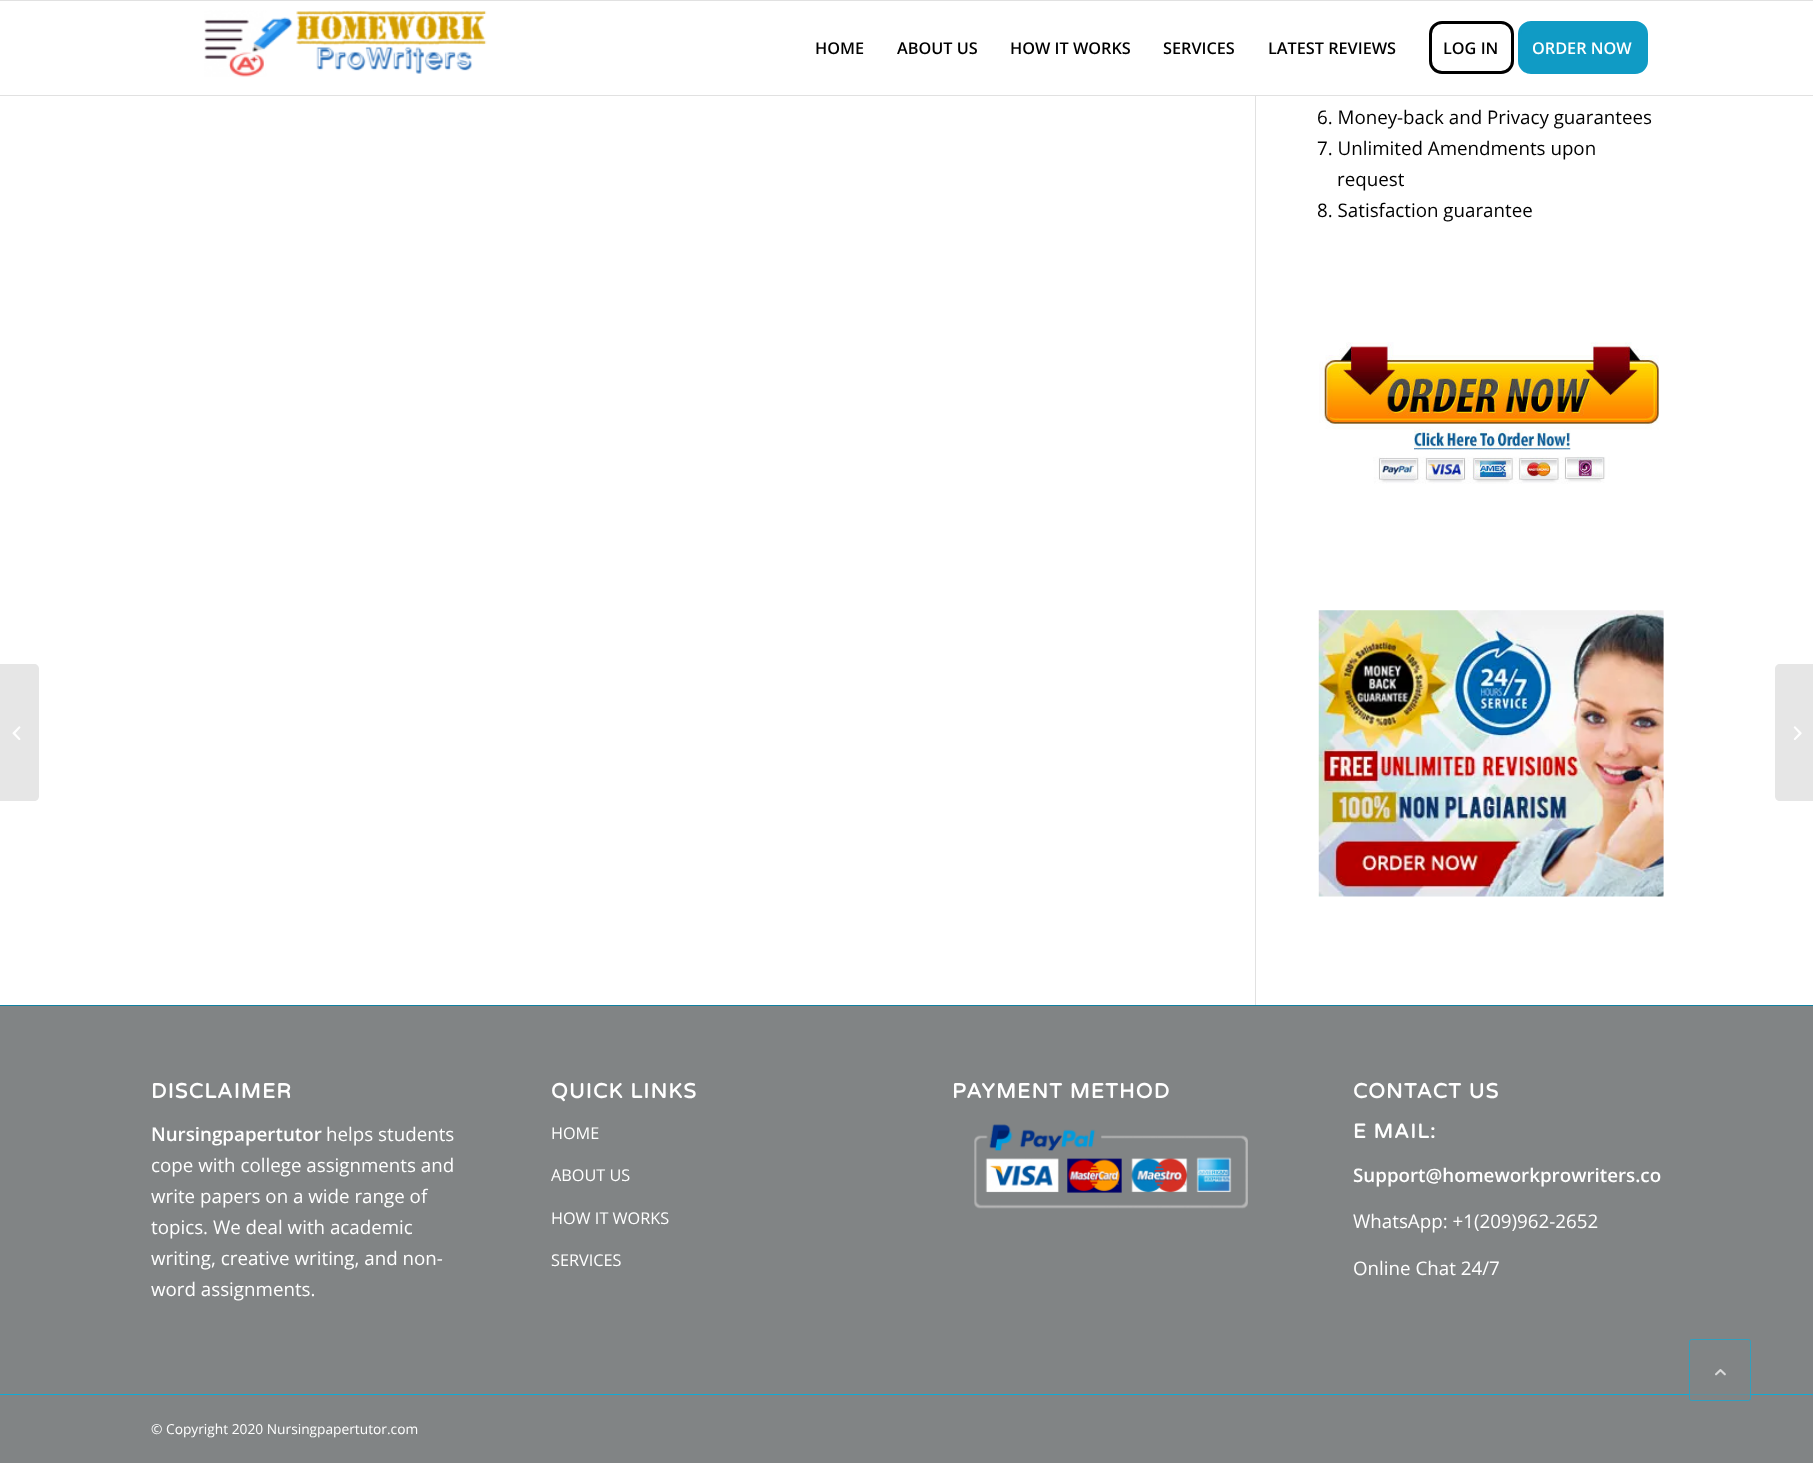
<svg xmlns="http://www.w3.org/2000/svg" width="1813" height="1463">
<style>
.a{font:600 16.25px Open Sans;fill:#000}
.b{font:600 16.25px Open Sans;fill:#fff}
.c{font:18.75px Open Sans;fill:#000}
.d{font:bold 20.6px Varela Round;letter-spacing:1.25px;fill:#fff}
.e{font:600 18.75px Open Sans;fill:#fff}
.f{font:18.75px Open Sans;fill:#fff}
.g{font:16.25px Open Sans;fill:#fff}
.h{font:bold 20px Varela Round;letter-spacing:1.25px;fill:#fff}
.i{font:13.75px Open Sans;fill:#fff}
</style>
<rect width="100%" height="100%" fill="#fff"/>
<path fill="#e1e1e1" d="M0 0h1813v1H0z"/>
<path fill="#e1e1e1" d="M0 95h1813v1H0z"/>
<image href="1.png" x="204" y="10" width="283" height="67"/>
<rect fill="none" stroke="#000" stroke-width="3" x="1430.5" y="22.5" width="82" height="50" rx="11.5"/>
<rect fill="#109bc5" stroke="#109bc5" stroke-width="3" x="1519.5" y="22.5" width="127" height="50" rx="11.5"/>
<path fill="#e6e6e6" d="M0 664h34c3 0 5 2 5 5v127c0 3-2 5-5 5h-34z"/>
<image href="2.png" x="12" y="726" width="9" height="14"/>
<path fill="#e1e1e1" d="M1255 96h1v909H1255z"/>
<image href="3.png" x="1319" y="342" width="340" height="142"/>
<image href="4.png" x="1318" y="610" width="346" height="287"/>
<path fill="#818485" d="M0 1006h1813v388H0z"/>
<path fill="#0f81a1" d="M0 1005h1813v1H0z"/>
<image href="5.png" x="974" y="1124" width="274" height="85"/>
<path fill="#818485" d="M0 1395h1813v68H0z"/>
<path fill="#11abd6" d="M0 1394h1813v1H0z"/>
<path fill="#e6e6e6" d="M1780 664h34v137h-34c-3 0-5-2-5-5v-127c0-3 2-5 5-5z"/>
<image href="6.png" x="1793" y="726" width="9" height="14"/>
<rect fill="#818485b3" x="1689" y="1339" width="62" height="62" rx="2.5"/>
<rect fill="none" stroke="#11abd6b3" x="1689.5" y="1339.5" width="61" height="61" rx="2"/>
<image href="7.png" x="1715" y="1369" width="11" height="7"/>
<text class="a" x="815" y="54">HOME</text>
<text class="a" x="897" y="54">ABOUT US</text>
<text class="a" x="1010" y="54">HOW IT WORKS</text>
<text class="a" x="1163" y="54">SERVICES</text>
<text class="a" x="1268" y="54">LATEST REVIEWS</text>
<text class="a" x="1443" y="54">LOG IN</text>
<text class="b" x="1532" y="54">ORDER NOW</text>
<text class="c" x="1317" y="124">6. Money-back and Privacy guarantees</text>
<text class="c" x="1317" y="155">7. Unlimited Amendments upon</text>
<text class="c" x="1337" y="186">request</text>
<text class="c" x="1317" y="217">8. Satisfaction guarantee</text>
<text class="d" x="151" y="1098">DISCLAIMER</text>
<text class="e" x="151" y="1141">Nursingpapertutor</text>
<text class="f" x="326" y="1141">helps students</text>
<text class="f" x="151" y="1172">cope with college assignments and</text>
<text class="f" x="151" y="1203">write papers on a wide range of</text>
<text class="f" x="151" y="1234">topics. We deal with academic</text>
<text class="f" x="151" y="1265">writing, creative writing, and non-</text>
<text class="f" x="151" y="1296">word assignments.</text>
<text class="d" x="551" y="1098">QUICK LINKS</text>
<text class="g" x="551" y="1139">HOME</text>
<text class="g" x="551" y="1181">ABOUT US</text>
<text class="g" x="551" y="1224">HOW IT WORKS</text>
<text class="g" x="551" y="1266">SERVICES</text>
<text class="d" x="952" y="1098">PAYMENT METHOD</text>
<text class="d" x="1353" y="1098">CONTACT US</text>
<text class="h" x="1353" y="1138">E MAIL:</text>
<text class="e" x="1353" y="1182">Support@homeworkprowriters.co</text>
<text class="f" x="1353" y="1228">WhatsApp: +1(209)962-2652</text>
<text class="f" x="1353" y="1275">Online Chat 24/7</text>
<text class="i" x="151" y="1434">© Copyright 2020 Nursingpapertutor.com</text>
</svg>
